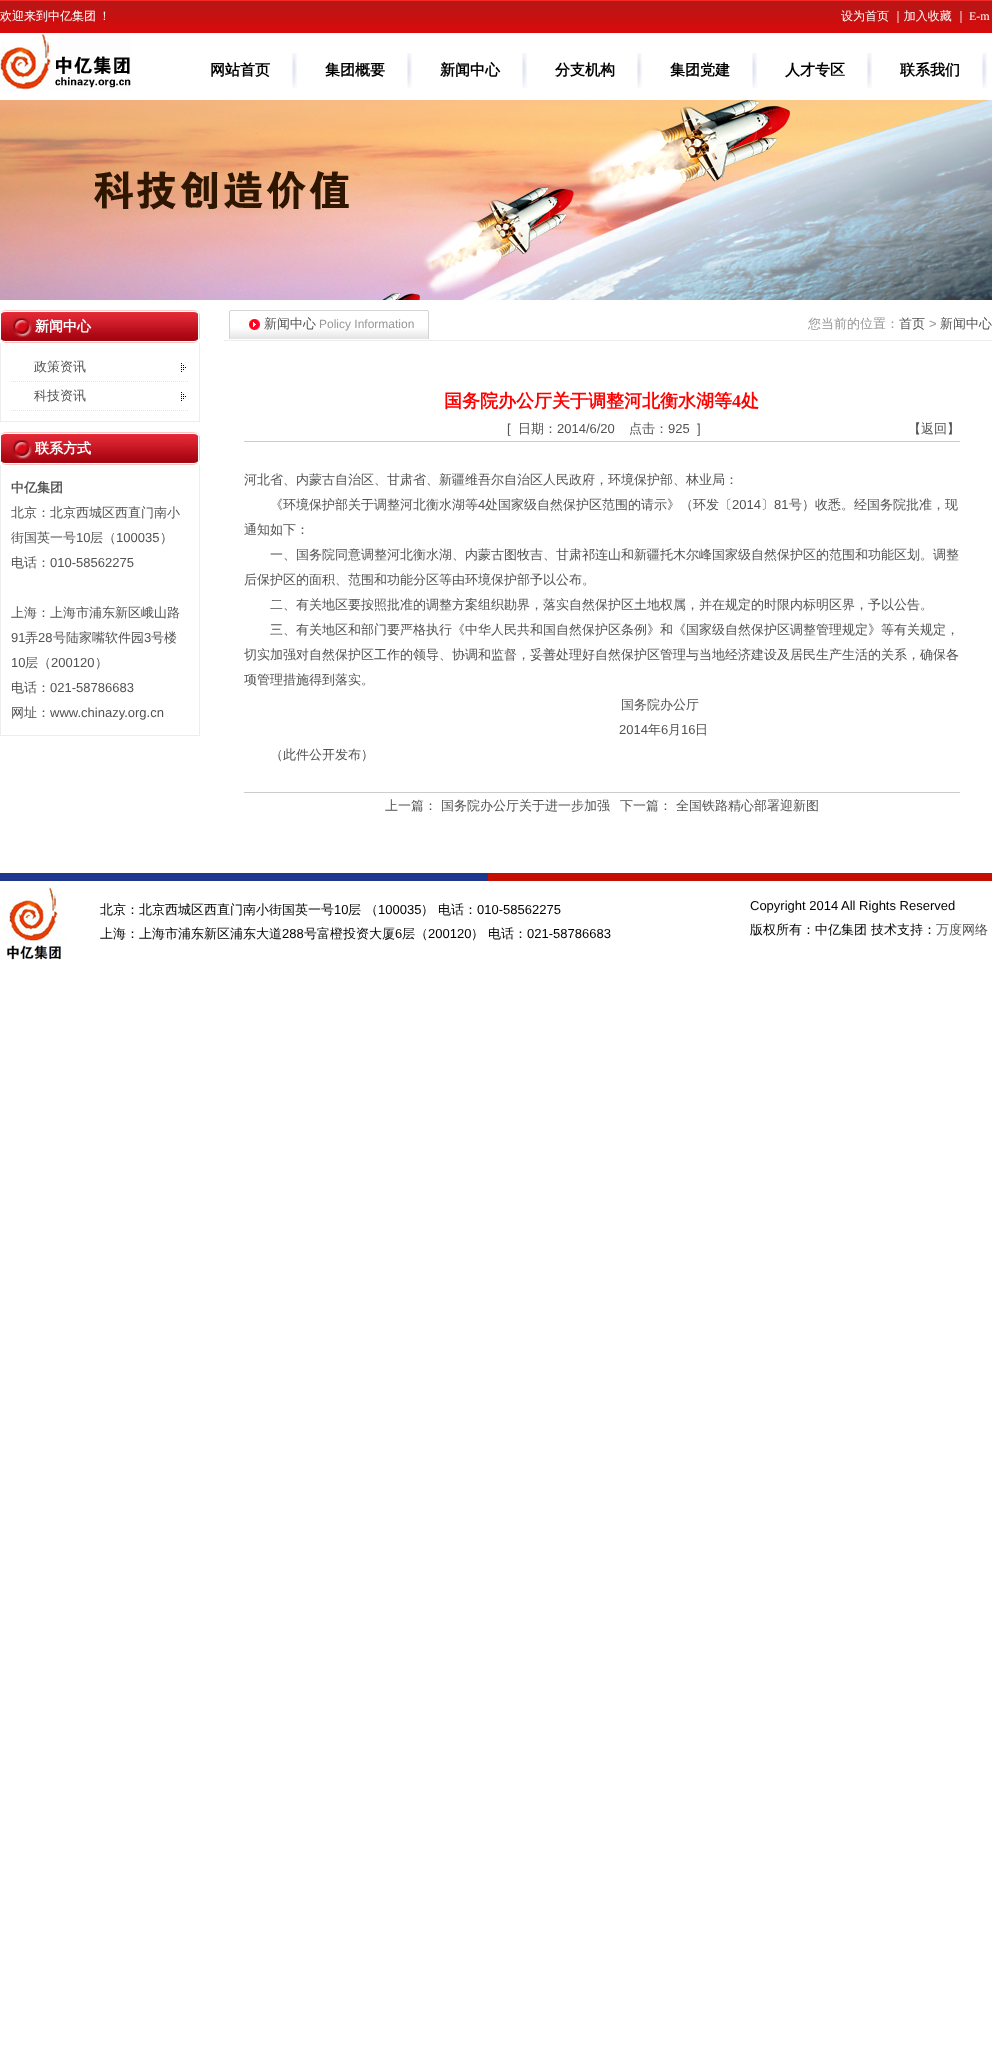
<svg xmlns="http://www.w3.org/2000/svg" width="992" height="2047">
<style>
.a{font:500 12px WenQuanYi Zen Hei;fill:#fff}
.b{font:12px Liberation Serif;fill:#fff}
.c{font:bold 15px WenQuanYi Zen Hei;fill:#000}
.d{font:bold 14px WenQuanYi Zen Hei;fill:#fff}
.e{font:500 13px WenQuanYi Zen Hei;fill:#525252}
.f{font:bold 13px WenQuanYi Zen Hei;fill:#525252}
.g{font:13px Liberation Sans;fill:#525252}
.h{font:12px Liberation Sans;fill:#979797}
.i{font:500 13px WenQuanYi Zen Hei;fill:#979797}
.j{font:13px Liberation Sans;fill:#979797}
.k{font:bold 18px WenQuanYi Zen Hei;fill:#f00}
.l{font:bold 18px Liberation Serif;fill:#f00}
.m{font:500 13px WenQuanYi Zen Hei;fill:#000}
.n{font:13px Liberation Sans;fill:#000}
</style>
<rect width="100%" height="100%" fill="#fff"/>
<image href="1.png" x="0" y="0" width="992" height="33"/>
<image href="2.png" x="0" y="34" width="131" height="57"/>
<image href="3.png" x="292" y="53" width="5" height="35"/>
<image href="3.png" x="407" y="53" width="5" height="35"/>
<image href="3.png" x="522" y="53" width="5" height="35"/>
<image href="3.png" x="637" y="53" width="5" height="35"/>
<image href="3.png" x="752" y="53" width="5" height="35"/>
<image href="3.png" x="867" y="53" width="5" height="35"/>
<image href="3.png" x="982" y="53" width="5" height="35"/>
<image href="4.png" x="0" y="100" width="992" height="200"/>
<image href="5.png" x="0" y="310" width="200" height="33"/>
<path fill="#ededed" d="M199 343h1v79H199z"/>
<path fill="#ededed" d="M0 421h200v1H0z"/>
<path fill="#ededed" d="M0 343h1v79H0z"/>
<image href="6.png" x="181" y="363" width="5" height="9"/>
<path fill="none" stroke="#e4e4e4" stroke-dasharray="1 1" d="M11 381.5h178"/>
<image href="6.png" x="181" y="392" width="5" height="9"/>
<path fill="none" stroke="#e4e4e4" stroke-dasharray="1 1" d="M11 410.5h178"/>
<image href="5.png" x="0" y="432" width="200" height="33"/>
<path fill="#ededed" d="M199 465h1v271H199z"/>
<path fill="#ededed" d="M0 735h200v1H0z"/>
<path fill="#ededed" d="M0 465h1v271H0z"/>
<path fill="#ededed" d="M224 340h768v1H224z"/>
<image href="7.png" x="229" y="310" width="200" height="29"/>
<path fill="#ccc" d="M244 441h716v1H244z"/>
<path fill="#ccc" d="M244 792h716v1H244z"/>
<image href="8.png" x="0" y="873" width="992" height="8"/>
<image href="9.png" x="2" y="886" width="65" height="74"/>
<text class="a" x="0" y="20" word-spacing="-1">欢迎来到中亿集团 ！</text>
<text class="a" x="841" y="20">设为首页</text>
<text class="a" x="892" y="20">｜加入收藏</text>
<text class="a" x="955" y="20">｜</text>
<text class="b" x="969" y="20">E-m</text>
<text class="c" x="210" y="75">网站首页</text>
<text class="c" x="325" y="75">集团概要</text>
<text class="c" x="440" y="75">新闻中心</text>
<text class="c" x="555" y="75">分支机构</text>
<text class="c" x="670" y="75">集团党建</text>
<text class="c" x="785" y="75">人才专区</text>
<text class="c" x="900" y="75">联系我们</text>
<text class="d" x="35" y="331">新闻中心</text>
<text class="e" x="34" y="371">政策资讯</text>
<text class="e" x="34" y="400">科技资讯</text>
<text class="d" x="35" y="453">联系方式</text>
<text class="f" x="11" y="492">中亿集团</text>
<text class="e" x="11" y="517">北京：北京西城区西直门南小</text>
<text class="e" x="11" y="542">街国英一号</text>
<text class="g" x="76" y="542">10</text>
<text class="e" x="90" y="542">层（</text>
<text class="g" x="116" y="542">100035</text>
<text class="e" x="160" y="542">）</text>
<text class="e" x="11" y="567">电话：</text>
<text class="g" x="50" y="567">010-58562275</text>
<text class="e" x="11" y="617">上海：上海市浦东新区峨山路</text>
<text class="g" x="11" y="642">91</text>
<text class="e" x="25" y="642">弄</text>
<text class="g" x="38" y="642">28</text>
<text class="e" x="53" y="642">号陆家嘴软件园</text>
<text class="g" x="144" y="642">3</text>
<text class="e" x="151" y="642">号楼</text>
<text class="g" x="11" y="667">10</text>
<text class="e" x="25" y="667">层（</text>
<text class="g" x="51" y="667">200120</text>
<text class="e" x="95" y="667">）</text>
<text class="e" x="11" y="692">电话：</text>
<text class="g" x="50" y="692">021-58786683</text>
<text class="e" x="11" y="717">网址：</text>
<text class="g" x="50" y="717">www.chinazy.org.cn</text>
<text class="e" x="264" y="328">新闻中心</text>
<text class="h" x="319" y="328">Policy Information</text>
<text class="i" x="808" y="328">您当前的位置：</text>
<text class="e" x="899" y="328">首页</text>
<text class="j" x="929" y="328">&gt;</text>
<text class="e" x="940" y="328">新闻中心</text>
<text class="k" x="444" y="407">国务院办公厅关于调整河北衡水湖等</text>
<text class="l" x="732" y="407">4</text>
<text class="k" x="741" y="407">处</text>
<text class="g" x="507" y="433">[</text>
<text class="e" x="518" y="433">日期：</text>
<text class="g" x="557" y="433">2014/6/20</text>
<text class="e" x="629" y="433">点击：</text>
<text class="g" xml:space="preserve" x="668" y="433">925  ]</text>
<text class="e" x="908" y="433">【返回】</text>
<text class="e" x="244" y="484">河北省、内蒙古自治区、甘肃省、新疆维吾尔自治区人民政府，环境保护部、林业局：</text>
<text class="e" x="270" y="509">《环境保护部关于调整河北衡水湖等</text>
<text class="g" x="478" y="509">4</text>
<text class="e" x="485" y="509">处国家级自然保护区范围的请示》（环发〔</text>
<text class="g" x="732" y="509">2014</text>
<text class="e" x="761" y="509">〕</text>
<text class="g" x="774" y="509">81</text>
<text class="e" x="789" y="509">号）收悉。经国务院批准，现</text>
<text class="e" x="244" y="534">通知如下：</text>
<text class="e" x="270" y="559">一、国务院同意调整河北衡水湖、内蒙古图牧吉、甘肃祁连山和新疆托木尔峰国家级自然保护区的范围和功能区划。调整</text>
<text class="e" x="244" y="584">后保护区的面积、范围和功能分区等由环境保护部予以公布。</text>
<text class="e" x="270" y="609">二、有关地区要按照批准的调整方案组织勘界，落实自然保护区土地权属，并在规定的时限内标明区界，予以公告。</text>
<text class="e" x="270" y="634">三、有关地区和部门要严格执行《中华人民共和国自然保护区条例》和《国家级自然保护区调整管理规定》等有关规定，</text>
<text class="e" x="244" y="659">切实加强对自然保护区工作的领导、协调和监督，妥善处理好自然保护区管理与当地经济建设及居民生产生活的关系，确保各</text>
<text class="e" x="244" y="684">项管理措施得到落实。</text>
<text class="e" x="621" y="709">国务院办公厅</text>
<text class="g" x="619" y="734">2014</text>
<text class="e" x="648" y="734">年</text>
<text class="g" x="661" y="734">6</text>
<text class="e" x="668" y="734">月</text>
<text class="g" x="681" y="734">16</text>
<text class="e" x="695" y="734">日</text>
<text class="e" x="270" y="759">（此件公开发布）</text>
<text class="e" x="385" y="810">上一篇： 国务院办公厅关于进一步加强</text>
<text class="e" x="620" y="810">下一篇： 全国铁路精心部署迎新图</text>
<text class="m" x="100" y="914">北京：北京西城区西直门南小街国英一号</text>
<text class="n" x="334" y="914">10</text>
<text class="m" x="348" y="914">层 （</text>
<text class="n" x="378" y="914">100035</text>
<text class="m" x="421" y="914">） 电话：</text>
<text class="n" x="477" y="914">010-58562275</text>
<text class="m" x="100" y="938">上海：上海市浦东新区浦东大道</text>
<text class="n" x="282" y="938">288</text>
<text class="m" x="304" y="938">号富橙投资大厦</text>
<text class="n" x="395" y="938">6</text>
<text class="m" x="402" y="938">层（</text>
<text class="n" x="428" y="938">200120</text>
<text class="m" x="471" y="938">） 电话：</text>
<text class="n" x="527" y="938">021-58786683</text>
<text class="n" x="750" y="910">Copyright 2014 All Rights Reserved</text>
<text class="m" x="750" y="934">版权所有：中亿集团 技术支持：</text>
<text class="e" x="936" y="934">万度网络</text>
</svg>
